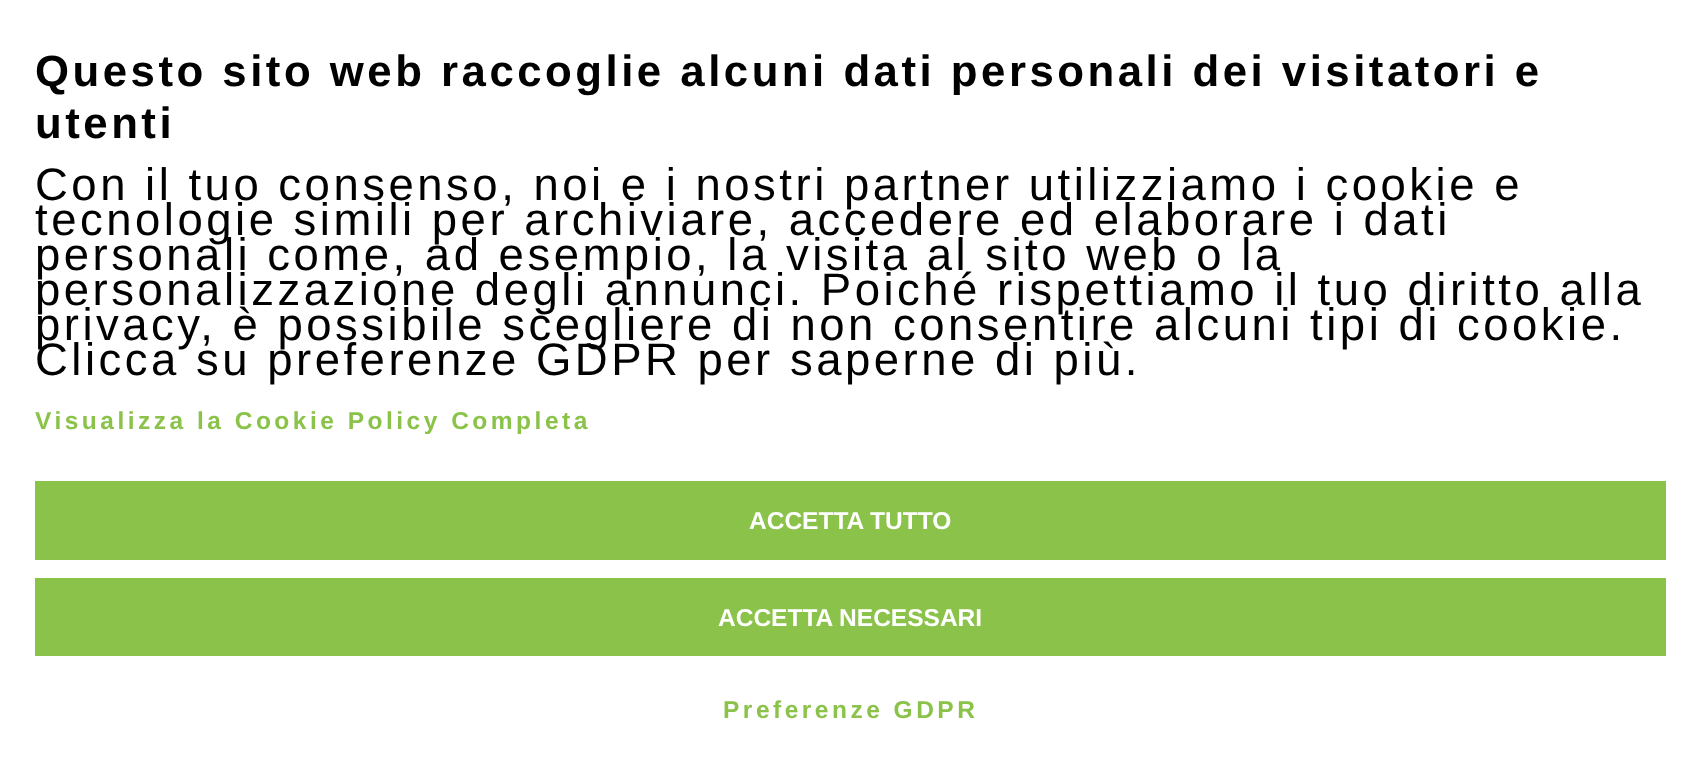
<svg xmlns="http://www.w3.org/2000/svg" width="1701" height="760">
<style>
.a{font:bold 43.75px Liberation Sans;letter-spacing:3.5px;fill:#000}
.b{font:45.5px Liberation Sans;letter-spacing:3.5px;fill:#000}
.c{font:bold 24.5px Liberation Sans;letter-spacing:3.5px;fill:#8bc34a}
.d{font:bold 24.5px Liberation Sans;fill:#fff}
</style>
<rect width="100%" height="100%" fill="#fff"/>
<path fill="#8bc34a" d="M35 481h1631v79H35z"/>
<path fill="#8bc34a" d="M35 578h1631v78H35z"/>
<text class="a" x="35" y="86">Questo sito web raccoglie alcuni dati personali dei visitatori e</text>
<text class="a" x="35" y="138">utenti</text>
<text class="b" x="35" y="200">Con il tuo consenso, noi e i nostri partner utilizziamo i cookie e</text>
<text class="b" x="35" y="235">tecnologie simili per archiviare, accedere ed elaborare i dati</text>
<text class="b" x="35" y="270">personali come, ad esempio, la visita al sito web o la</text>
<text class="b" x="35" y="305">personalizzazione degli annunci. Poiché rispettiamo il tuo diritto alla</text>
<text class="b" x="35" y="340">privacy, è possibile scegliere di non consentire alcuni tipi di cookie.</text>
<text class="b" x="35" y="375">Clicca su preferenze GDPR per saperne di più.</text>
<text class="c" x="35" y="429">Visualizza la Cookie Policy Completa</text>
<text class="d" x="749" y="529">ACCETTA TUTTO</text>
<text class="d" x="718" y="626">ACCETTA NECESSARI</text>
<text class="c" x="723" y="718">Preferenze GDPR</text>
</svg>
